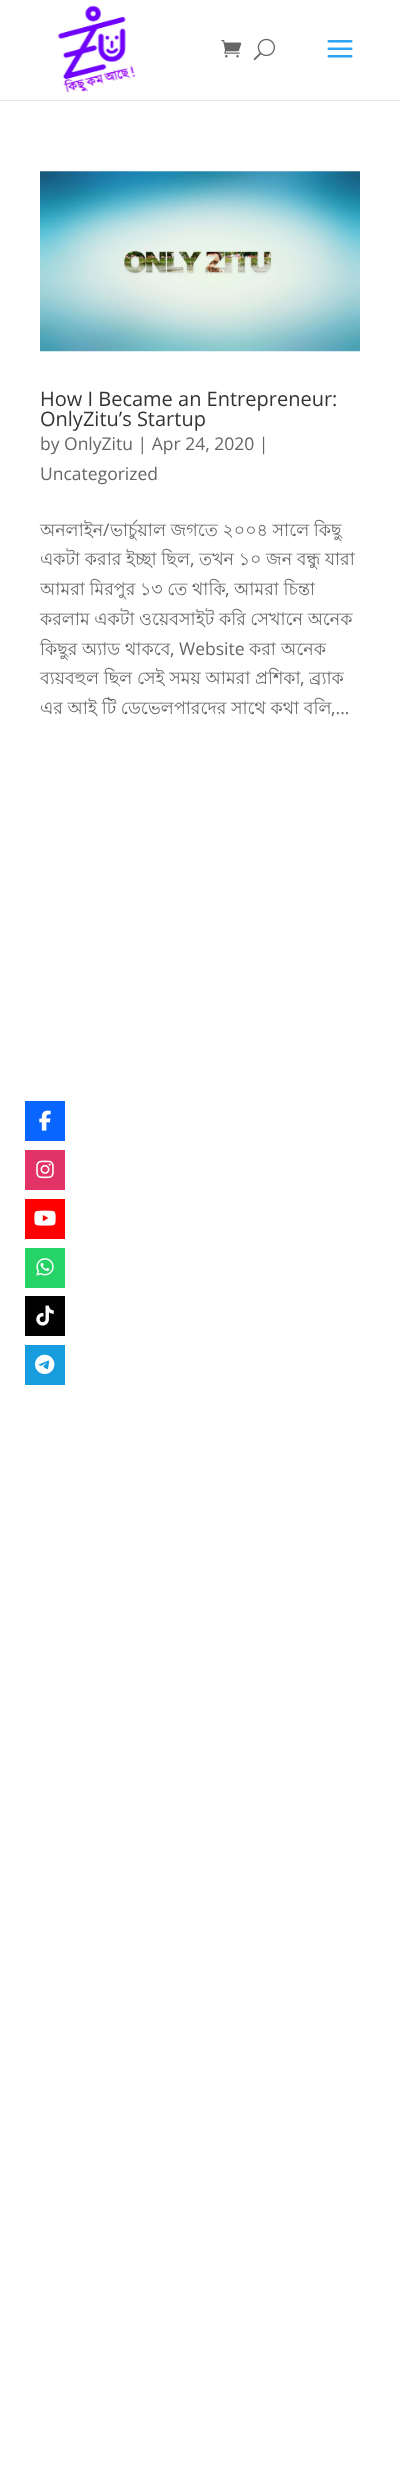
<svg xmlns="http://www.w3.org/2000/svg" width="400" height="2485">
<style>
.a{font:20px Open Sans;fill:#333}
.b{font:17.5px Open Sans;fill:#666}
.c{font:17.5px Lohit Bengali;fill:#666}
</style>
<rect width="100%" height="100%" fill="#fff"/>
<path fill="#e6e6e6" d="M0 100h400v1H0z"/>
<image href="1.png" x="57" y="5" width="79" height="88"/>
<image href="2.png" x="221" y="40" width="21" height="18"/>
<image href="3.png" x="253" y="38" width="22" height="23"/>
<image href="4.png" x="327" y="40" width="26" height="18"/>
<image href="5.png" x="40" y="171" width="320" height="181"/>
<path fill="#0866ff" d="M25 1101h40v40H25z"/>
<image href="6.png" x="39" y="1110" width="12" height="21"/>
<path fill="#e23367" d="M25 1150h40v40H25z"/>
<image href="7.png" x="36" y="1160" width="18" height="19"/>
<path fill="#f00" d="M25 1199h40v40H25z"/>
<image href="8.png" x="34" y="1210" width="22" height="16"/>
<path fill="#25d366" d="M25 1248h40v40H25z"/>
<image href="9.png" x="36" y="1258" width="18" height="18"/>
<path fill="#010101" d="M25 1296h40v40H25z"/>
<image href="10.png" x="36" y="1305" width="18" height="21"/>
<path fill="#179cde" d="M25 1345h40v40H25z"/>
<image href="11.png" x="35" y="1354" width="20" height="21"/>
<text class="a" x="40" y="406">How I Became an Entrepreneur:</text>
<text class="a" x="40" y="426">OnlyZitu’s Startup</text>
<text class="b" x="40" y="450">by OnlyZitu | Apr 24, 2020 |</text>
<text class="b" x="40" y="480">Uncategorized</text>
<text class="c" x="40" y="536">অনলাইন</text>
<text class="b" x="103" y="536">/</text>
<text class="c" x="110" y="536" word-spacing="-0.25">ভার্চুয়াল জগতে ২০০৪ সালে কিছু</text>
<text class="c" x="40" y="565" word-spacing="-0.25">একটা করার ইচ্ছা ছিল</text>
<text class="b" x="190" y="565">,</text>
<text class="c" x="199" y="565" word-spacing="-0.25">তখন ১০ জন বন্ধু যারা</text>
<text class="c" x="40" y="595" word-spacing="-0.25">আমরা মিরপুর ১৩ তে থাকি</text>
<text class="b" x="225" y="595">,</text>
<text class="c" x="234" y="595" word-spacing="-0.25">আমরা চিন্তা</text>
<text class="c" x="40" y="625" word-spacing="-0.25">করলাম একটা ওয়েবসাইট করি সেখানে অনেক</text>
<text class="c" x="40" y="655">কিছুর</text>
<text class="c" x="82" y="655">অ্যাড</text>
<text class="c" x="125" y="655">থাকবে</text>
<text class="b" x="170" y="655">, Website</text>
<text class="c" x="249" y="655">করা</text>
<text class="c" x="281" y="655">অনেক</text>
<text class="c" x="40" y="684" word-spacing="-0.25">ব্যয়বহুল ছিল সেই সময় আমরা প্রশিকা</text>
<text class="b" x="300" y="684">,</text>
<text class="c" x="309" y="684">ব্র্যাক</text>
<text class="c" x="40" y="714" word-spacing="-0.25">এর আই টি ডেভেলপারদের সাথে কথা বলি</text>
<text class="b" x="331" y="714">,...</text>
</svg>
